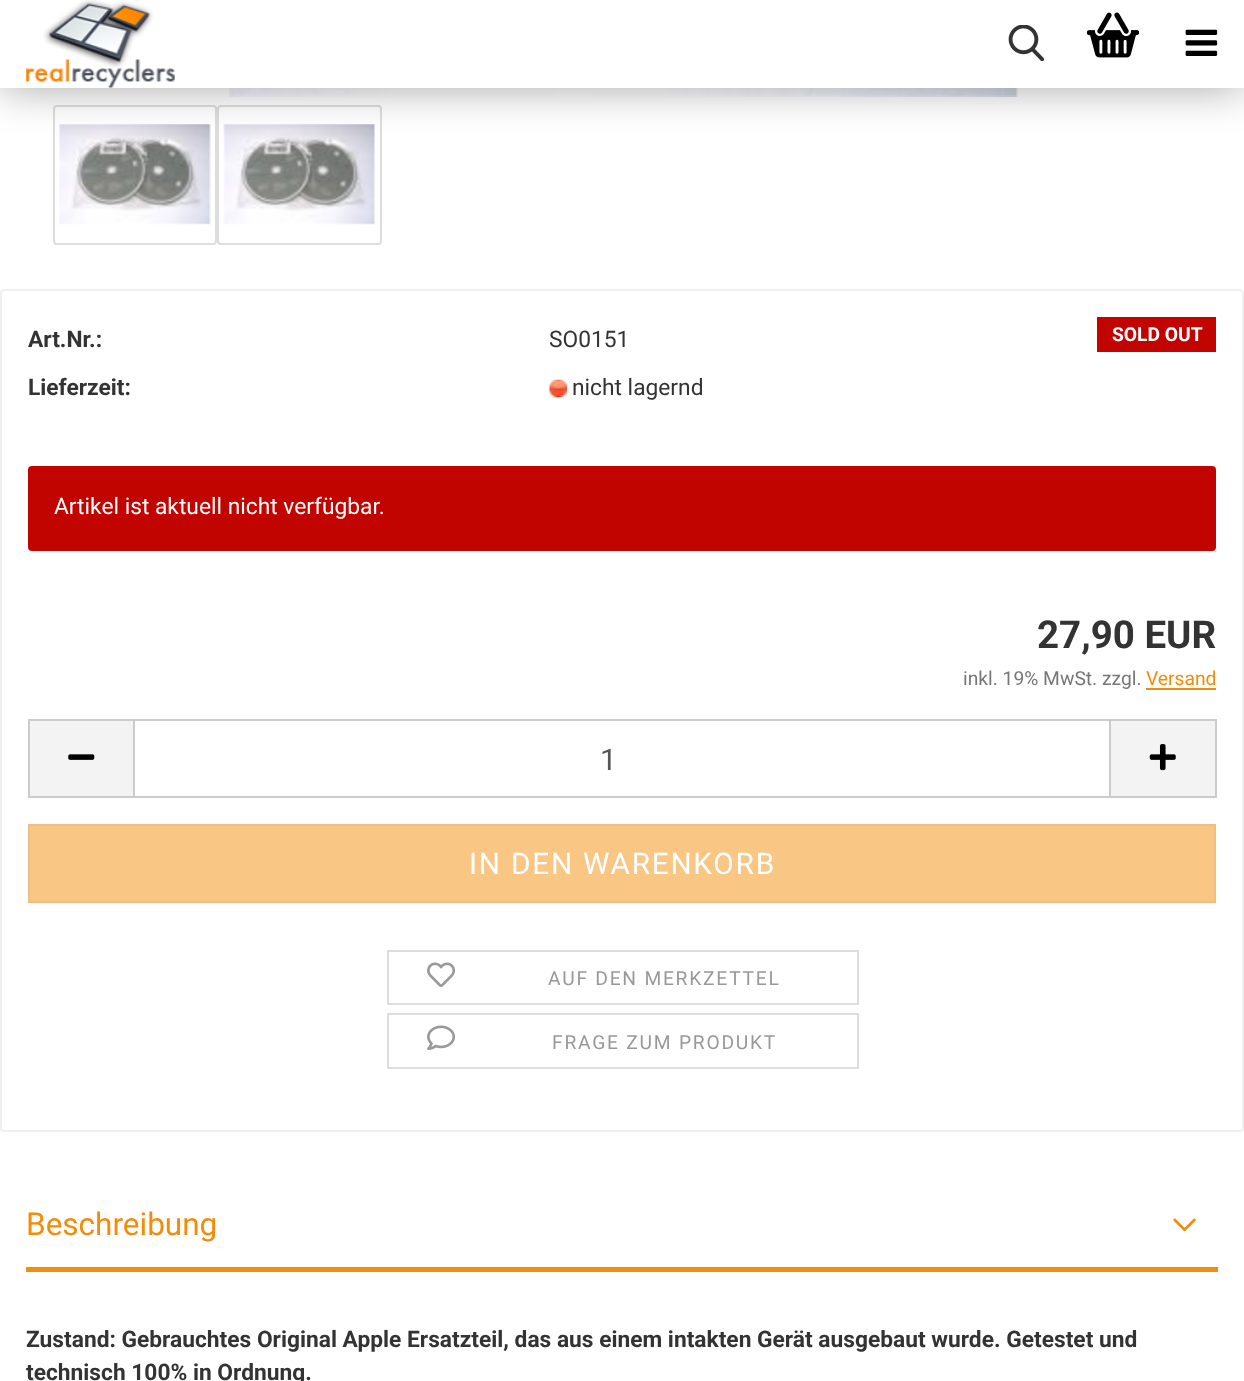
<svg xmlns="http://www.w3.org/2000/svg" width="1244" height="1381">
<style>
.a{font:bold 19.25px Roboto;fill:#fff}
.b{font:bold 22.75px Roboto;fill:#333}
.c{font:22.75px Roboto;fill:#333}
.d{font:22.75px Roboto;fill:#fff}
.e{font:bold 38.5px Roboto;fill:#333}
.f{font:19.25px Roboto;fill:#777}
.g{font:19.25px Roboto;fill:#f38c09}
.h{font:29.75px Roboto;fill:#555}
.i{font:29.75px Roboto;letter-spacing:1.75px;fill:#fff}
.j{font:19.25px Roboto;letter-spacing:1.75px;fill:#999}
.k{font:31.5px Roboto;fill:#f38c09}
</style>
<rect width="100%" height="100%" fill="#fff"/>
<image href="5.png" x="229" y="88" width="789" height="9"/>
<rect fill="none" stroke="#ddd" stroke-width="2" x="54" y="106" width="162" height="138" rx="3"/>
<image href="6.png" x="59" y="124" width="152" height="101"/>
<rect fill="none" stroke="#ddd" stroke-width="2" x="218" y="106" width="163" height="138" rx="3"/>
<image href="7.png" x="223" y="124" width="152" height="101"/>
<path fill="#00000059" filter="blur(22px)" d="M0 0h1244v88H0z"/>
<path fill="#fff" d="M0 0h1244v88H0z"/>
<image href="1.png" x="26" y="0" width="149" height="88"/>
<image href="2.png" x="1008" y="25" width="37" height="36"/>
<image href="3.png" x="1087" y="12" width="52" height="46"/>
<image href="4.png" x="1185" y="29" width="33" height="27"/>
<rect fill="none" stroke="#f0f0f0" stroke-width="2" x="1" y="290" width="1242" height="841" rx="3"/>
<path fill="#c20400" d="M1097 317h119v35H1097z"/>
<image href="8.png" x="549" y="379" width="18" height="19"/>
<rect fill="#c20400" x="28" y="466" width="1188" height="85" rx="4"/>
<path fill="#f38c09" d="M1146 688h70v2H1146z"/>
<path fill="#f3f3f3" d="M30 721h103v75H30z"/>
<path fill="#ccc" d="M28 719h105v2H28z"/>
<path fill="#ccc" d="M28 796h105v2H28z"/>
<path fill="#ccc" d="M28 719h2v79H28z"/>
<image href="9.png" x="68" y="754" width="27" height="6"/>
<path fill="none" stroke="#ccc" stroke-width="2" d="M134 720h976v77H134z"/>
<path fill="#f3f3f3" d="M1111 721h104v75H1111z"/>
<path fill="#ccc" d="M1111 719h105v2H1111z"/>
<path fill="#ccc" d="M1215 719h2v79H1215z"/>
<path fill="#ccc" d="M1111 796h105v2H1111z"/>
<image href="10.png" x="1149" y="744" width="27" height="27"/>
<path fill="#f9c684" stroke="#edbf84" stroke-width="2" d="M29 825h1186v77H29z"/>
<path fill="none" stroke="#ddd" stroke-width="2" d="M388 951h470v53H388z"/>
<image href="11.png" x="427" y="962" width="29" height="25"/>
<path fill="none" stroke="#ddd" stroke-width="2" d="M388 1014h470v54H388z"/>
<image href="12.png" x="427" y="1025" width="28" height="25"/>
<path fill="#f38c09" d="M26 1267h1192v5H26z"/>
<image href="13.png" x="1173" y="1218" width="23" height="14"/>
<text class="a" x="1112" y="341">SOLD OUT</text>
<text class="b" x="28" y="347">Art.Nr.:</text>
<text class="c" x="549" y="347">SO0151</text>
<text class="b" x="28" y="395">Lieferzeit:</text>
<text class="c" x="572" y="395">nicht lagernd</text>
<text class="d" x="54" y="514">Artikel ist aktuell nicht verfügbar.</text>
<text class="e" x="1037" y="648">27,90 EUR</text>
<text class="f" x="963" y="685">inkl. 19% MwSt. zzgl.</text>
<text class="g" x="1146" y="685">Versand</text>
<text class="h" x="600" y="770">1</text>
<text class="i" x="469" y="874">IN DEN WARENKORB</text>
<text class="j" x="548" y="985">AUF DEN MERKZETTEL</text>
<text class="j" x="552" y="1049">FRAGE ZUM PRODUKT</text>
<text class="k" x="26" y="1235">Beschreibung</text>
<text class="b" x="26" y="1347">Zustand: Gebrauchtes Original Apple Ersatzteil, das aus einem intakten Gerät ausgebaut wurde. Getestet und</text>
<text class="b" x="26" y="1380">technisch 100% in Ordnung.</text>
</svg>
